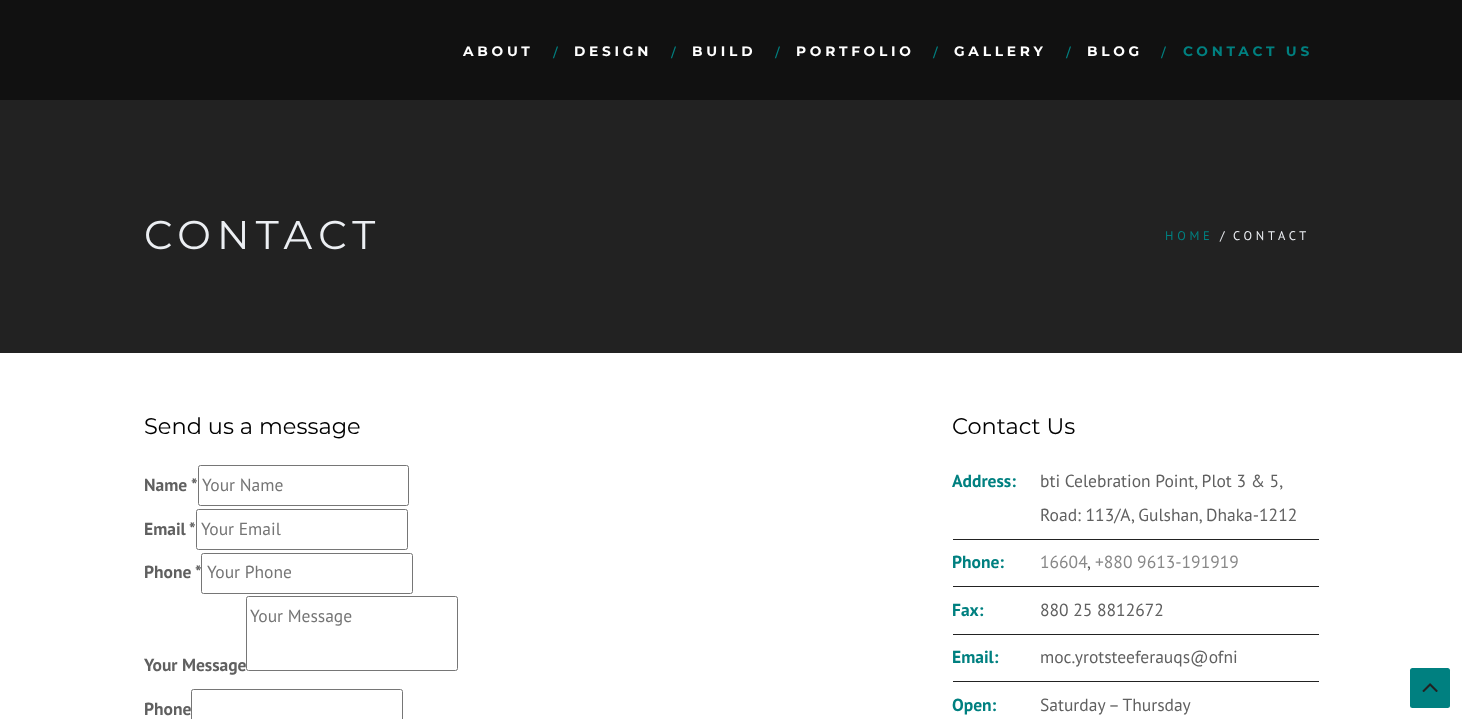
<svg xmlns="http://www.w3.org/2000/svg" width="1462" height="719">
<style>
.a{font:bold 13.75px Montserrat;letter-spacing:3.75px;fill:#fff}
.b{font:bold 17.5px Liberation Serif;letter-spacing:3.75px;fill:#008080}
.c{font:bold 13.75px Montserrat;letter-spacing:3.75px;fill:#008080}
.d{font:40px Montserrat;letter-spacing:6.25px;fill:#eceff3}
.e{font:12.5px PT Sans;letter-spacing:3.75px;fill:#008080}
.f{font:12.5px PT Sans;letter-spacing:3.75px;fill:#eceff3}
.g{font:22.5px Montserrat;fill:#000}
.h{font:bold 17.5px PT Sans;fill:#606060}
.i{font:17.5px PT Sans;fill:#757575}
.j{font:bold 17.5px PT Sans;fill:#008080}
.k{font:17.5px PT Sans;fill:#606060}
.l{font:17.5px PT Sans;fill:#888}
</style>
<rect width="100%" height="100%" fill="#fff"/>
<path fill="#111" d="M0 0h1462v100H0z"/>
<path fill="#222" d="M0 100h1462v253H0z"/>
<rect fill="none" stroke="#767676" x="198.5" y="465.5" width="210" height="40" rx="2"/>
<rect fill="none" stroke="#767676" x="196.5" y="509.5" width="211" height="40" rx="2"/>
<rect fill="none" stroke="#767676" x="201.5" y="553.5" width="211" height="40" rx="2"/>
<rect fill="none" stroke="#767676" x="246.5" y="596.5" width="211" height="74" rx="2"/>
<rect fill="none" stroke="#767676" x="191.5" y="689.5" width="211" height="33" rx="2"/>
<path fill="#222" d="M953 539h366v1H953z"/>
<path fill="#222" d="M953 586h366v1H953z"/>
<path fill="#222" d="M953 634h366v1H953z"/>
<path fill="#222" d="M953 681h366v1H953z"/>
<rect fill="#008080" x="1410" y="668" width="40" height="40" rx="2.5"/>
<image href="1.png" x="1422" y="683" width="16" height="9"/>
<text class="a" x="463" y="56">ABOUT</text>
<text class="b" x="553" y="58">/</text>
<text class="a" x="574" y="56">DESIGN</text>
<text class="b" x="671" y="58">/</text>
<text class="a" x="692" y="56">BUILD</text>
<text class="b" x="775" y="58">/</text>
<text class="a" x="796" y="56">PORTFOLIO</text>
<text class="b" x="933" y="58">/</text>
<text class="a" x="954" y="56">GALLERY</text>
<text class="b" x="1066" y="58">/</text>
<text class="a" x="1087" y="56">BLOG</text>
<text class="b" x="1161" y="58">/</text>
<text class="c" x="1183" y="56">CONTACT US</text>
<text class="d" x="144" y="249">CONTACT</text>
<text class="e" x="1165" y="240">HOME</text>
<text class="f" x="1220" y="240">/</text>
<text class="f" x="1233" y="240">CONTACT</text>
<text class="g" x="144" y="434">Send us a message</text>
<text class="h" x="144" y="491">Name</text>
<text class="h" x="191" y="491">*</text>
<text class="i" x="202" y="491">Your Name</text>
<text class="h" x="144" y="535">Email</text>
<text class="h" x="189" y="535">*</text>
<text class="i" x="201" y="535">Your Email</text>
<text class="h" x="144" y="578">Phone</text>
<text class="h" x="195" y="578">*</text>
<text class="i" x="207" y="578">Your Phone</text>
<text class="i" x="250" y="622">Your Message</text>
<text class="h" x="144" y="671">Your Message</text>
<text class="h" x="144" y="715">Phone</text>
<text class="g" x="952" y="434">Contact Us</text>
<text class="j" x="952" y="487">Address:</text>
<text class="k" x="1040" y="487">bti Celebration Point, Plot 3 &amp; 5,</text>
<text class="k" x="1040" y="521">Road: 113/A, Gulshan, Dhaka-1212</text>
<text class="j" x="952" y="568">Phone:</text>
<text class="l" x="1040" y="568">16604</text>
<text class="k" x="1087" y="568">,</text>
<text class="l" x="1095" y="568">+880 9613-191919</text>
<text class="j" x="952" y="616">Fax:</text>
<text class="k" x="1040" y="616">880 25 8812672</text>
<text class="j" x="952" y="663">Email:</text>
<text class="k" x="1040" y="663">moc.yrotsteeferauqs@ofni</text>
<text class="j" x="952" y="711">Open:</text>
<text class="k" x="1040" y="711">Saturday – Thursday</text>
</svg>
